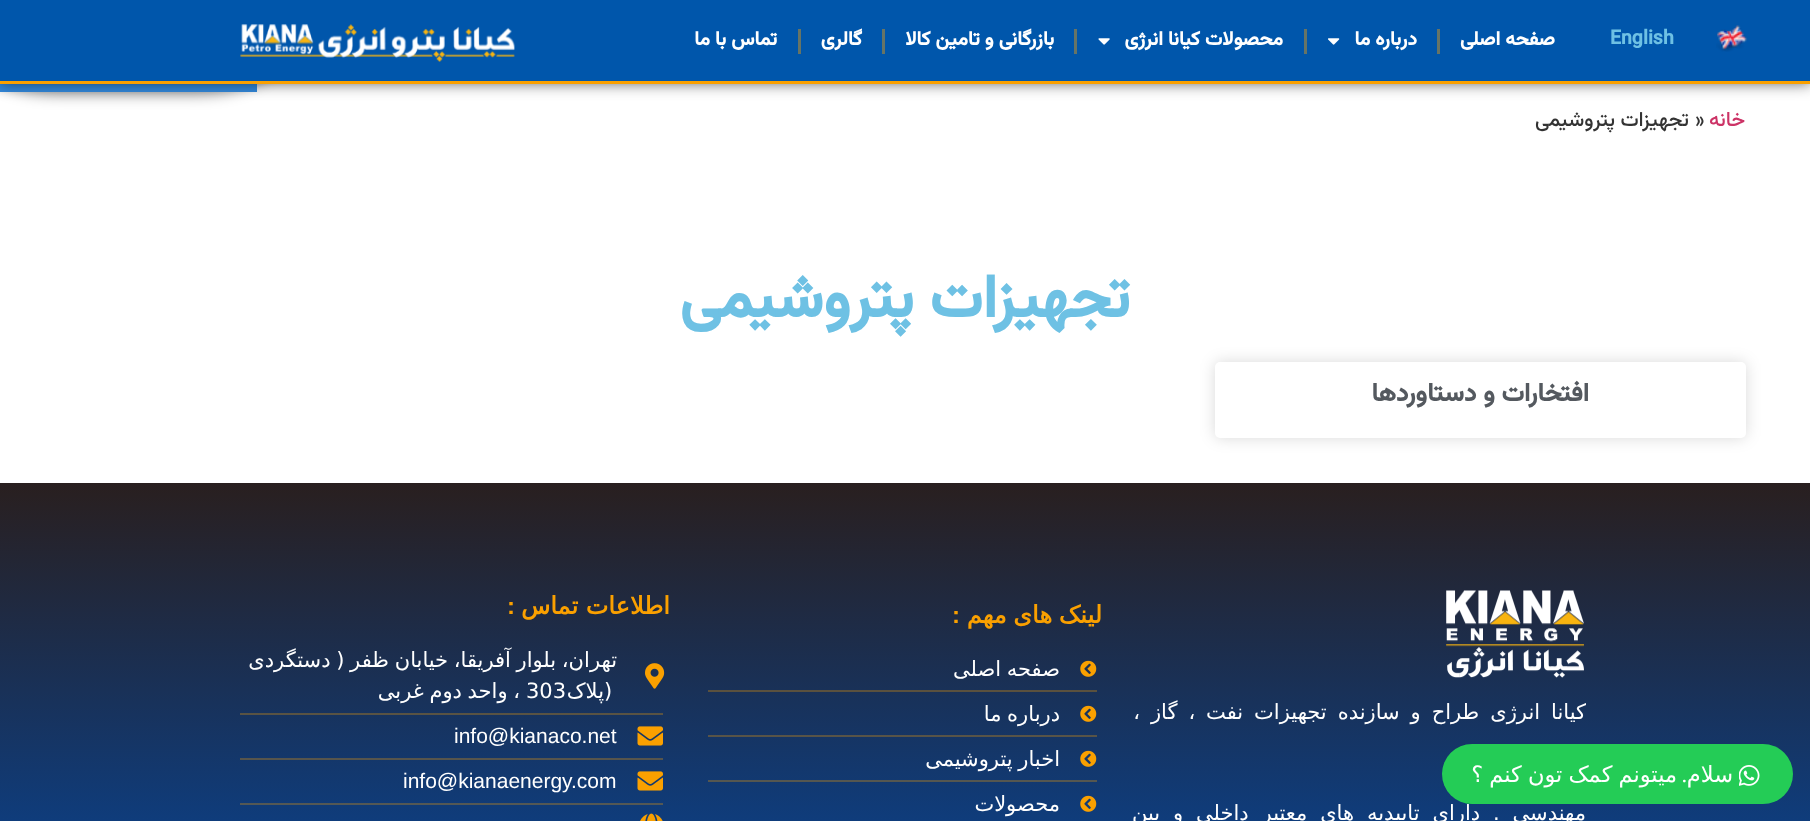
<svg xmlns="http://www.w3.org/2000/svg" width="1810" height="821">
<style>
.a{font:bold 19.5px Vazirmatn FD;fill:#6ec1e4}
.b{font:bold 19.5px Vazirmatn FD;direction:rtl;fill:#fff}
.c{font:500 20.5px Vazirmatn FD;direction:rtl;fill:#c36}
.d{font:500 20.5px Vazirmatn FD;fill:#333}
.e{font:500 20.5px Vazirmatn FD;direction:rtl;fill:#333}
.f{font:bold 60px Vazirmatn FD;direction:rtl;fill:#6ec1e4}
.g{font:bold 25.5px Vazirmatn FD;direction:rtl;fill:#54595f}
.h{font:22.5px DejaVu Sans;direction:rtl;fill:#fff}
.i{font:22.5px Liberation Serif;direction:rtl;fill:#fff}
.j{font:21px DejaVu Sans;direction:rtl;fill:#fff}
.k{font:bold 24px DejaVu Sans;direction:rtl;fill:#faa000}
.l{font:bold 24px Liberation Sans;direction:rtl;fill:#faa000}
.m{font:21px DejaVu Sans;fill:#fff}
.n{font:21px Liberation Sans;fill:#fff}
</style>
<defs>
<linearGradient id="g1" gradientUnits="userSpaceOnUse" x1="905" y1="483" x2="905" y2="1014"><stop offset="0" stop-color="#291f1f"/><stop offset="1" stop-color="#004db0"/></linearGradient>
</defs>
<rect width="100%" height="100%" fill="#fff"/>
<path fill="#00000080" filter="blur(7.5px)" d="M0 11h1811v64H0z"/>
<rect fill="#00000080" filter="blur(7.5px)" x="-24" y="12" width="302" height="81" rx="81"/>
<path fill="#3288db" d="M0 84h257v8H0z"/>
<path fill="#00000080" filter="blur(7.5px)" d="M0 0h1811v84H0z"/>
<path fill="#0056ab" d="M0 0h1810v81H0z"/>
<path fill="#faa000" d="M0 81h1810v3H0z"/>
<image href="1.png" x="1716" y="25" width="32" height="27"/>
<path fill="#677465" d="M1437 29h3v25H1437z"/>
<image href="2.png" x="1328" y="38" width="12" height="7"/>
<path fill="#677465" d="M1304 29h3v25H1304z"/>
<image href="3.png" x="1098" y="38" width="12" height="7"/>
<path fill="#677465" d="M1074 29h3v25H1074z"/>
<path fill="#677465" d="M882 29h3v25H882z"/>
<path fill="#677465" d="M798 29h3v25H798z"/>
<image href="4.png" x="240" y="24" width="275" height="38"/>
<rect fill="#00000026" filter="blur(7.5px)" x="1215" y="362" width="531" height="76" rx="5"/>
<rect fill="#fff" x="1215" y="362" width="531" height="76" rx="5"/>
<path fill="url(#g1)" d="M0 483h1810v338H0z"/>
<rect fill="#24cc56" x="1442" y="744" width="351" height="60" rx="30"/>
<image href="5.png" x="1739" y="765" width="21" height="21"/>
<image href="6.png" x="1446" y="590" width="138" height="88"/>
<image href="7.png" x="1080" y="660" width="17" height="17"/>
<path fill="#5a513e" d="M708 690h389v2H708z"/>
<image href="8.png" x="1080" y="705" width="17" height="17"/>
<path fill="#585447" d="M708 735h389v2H708z"/>
<image href="9.png" x="1080" y="750" width="17" height="17"/>
<path fill="#555750" d="M708 780h389v2H708z"/>
<image href="10.png" x="1080" y="795" width="17" height="17"/>
<image href="11.png" x="645" y="663" width="20" height="26"/>
<path fill="#595343" d="M240 713h423v2H240z"/>
<image href="12.png" x="637" y="726" width="26" height="20"/>
<path fill="#57554c" d="M240 758h423v2H240z"/>
<image href="13.png" x="637" y="771" width="26" height="20"/>
<path fill="#545854" d="M240 803h423v2H240z"/>
<image href="14.png" x="640" y="813" width="23" height="8"/>
<text class="a" x="1610" y="44">English</text>
<text class="b" x="1555" y="45">صفحه اصلی</text>
<text class="b" x="1417" y="45">درباره ما</text>
<text class="b" x="1283" y="45">محصولات کیانا انرژی</text>
<text class="b" x="1054" y="45">بازرگانی و تامین کالا</text>
<text class="b" x="862" y="45">گالری</text>
<text class="b" x="777" y="45">تماس با ما</text>
<text class="c" x="1745" y="126">خانه</text>
<text class="d" x="1695" y="126">»</text>
<text class="e" x="1689" y="126">تجهیزات پتروشیمی</text>
<text class="f" x="1130" y="317">تجهیزات پتروشیمی</text>
<text class="g" x="1589" y="401">افتخارات و دستاوردها</text>
<text class="h" x="1733" y="782">سلام</text>
<text class="i" x="1687" y="782">.</text>
<text class="h" x="1677" y="782" word-spacing="-1">میتونم کمک تون کنم ؟</text>
<text class="j" x="1586" y="719" word-spacing="4.25">کیانا انرژی طراح و سازنده تجهیزات نفت ، گاز ،</text>
<text class="j" x="1586" y="820" word-spacing="6.25">مهندسی . دارای تاییدیه های معتبر داخلی و بین</text>
<text class="k" x="1102" y="623" word-spacing="-1">لینک های مهم</text>
<text class="l" x="960" y="623">:</text>
<text class="j" x="1060" y="676" word-spacing="-1">صفحه اصلی</text>
<text class="j" x="1060" y="721" word-spacing="-1">درباره ما</text>
<text class="j" x="1060" y="766" word-spacing="-1">اخبار پتروشیمی</text>
<text class="j" x="1060" y="811">محصولات</text>
<text class="k" x="670" y="614">اطلاعات تماس</text>
<text class="l" x="515" y="614">:</text>
<text class="j" x="617" y="667" word-spacing="-1">تهران، بلوار آفریقا، خیابان ظفر ( دستگردی</text>
<text class="m" x="604" y="698">)</text>
<text class="j" x="604" y="698">پلاک</text>
<text class="m" x="526" y="698">303</text>
<text class="j" x="520" y="698" word-spacing="-1">، واحد دوم غربی</text>
<text class="n" x="454" y="743">info@kianaco.net</text>
<text class="n" x="403" y="788">info@kianaenergy.com</text>
</svg>
